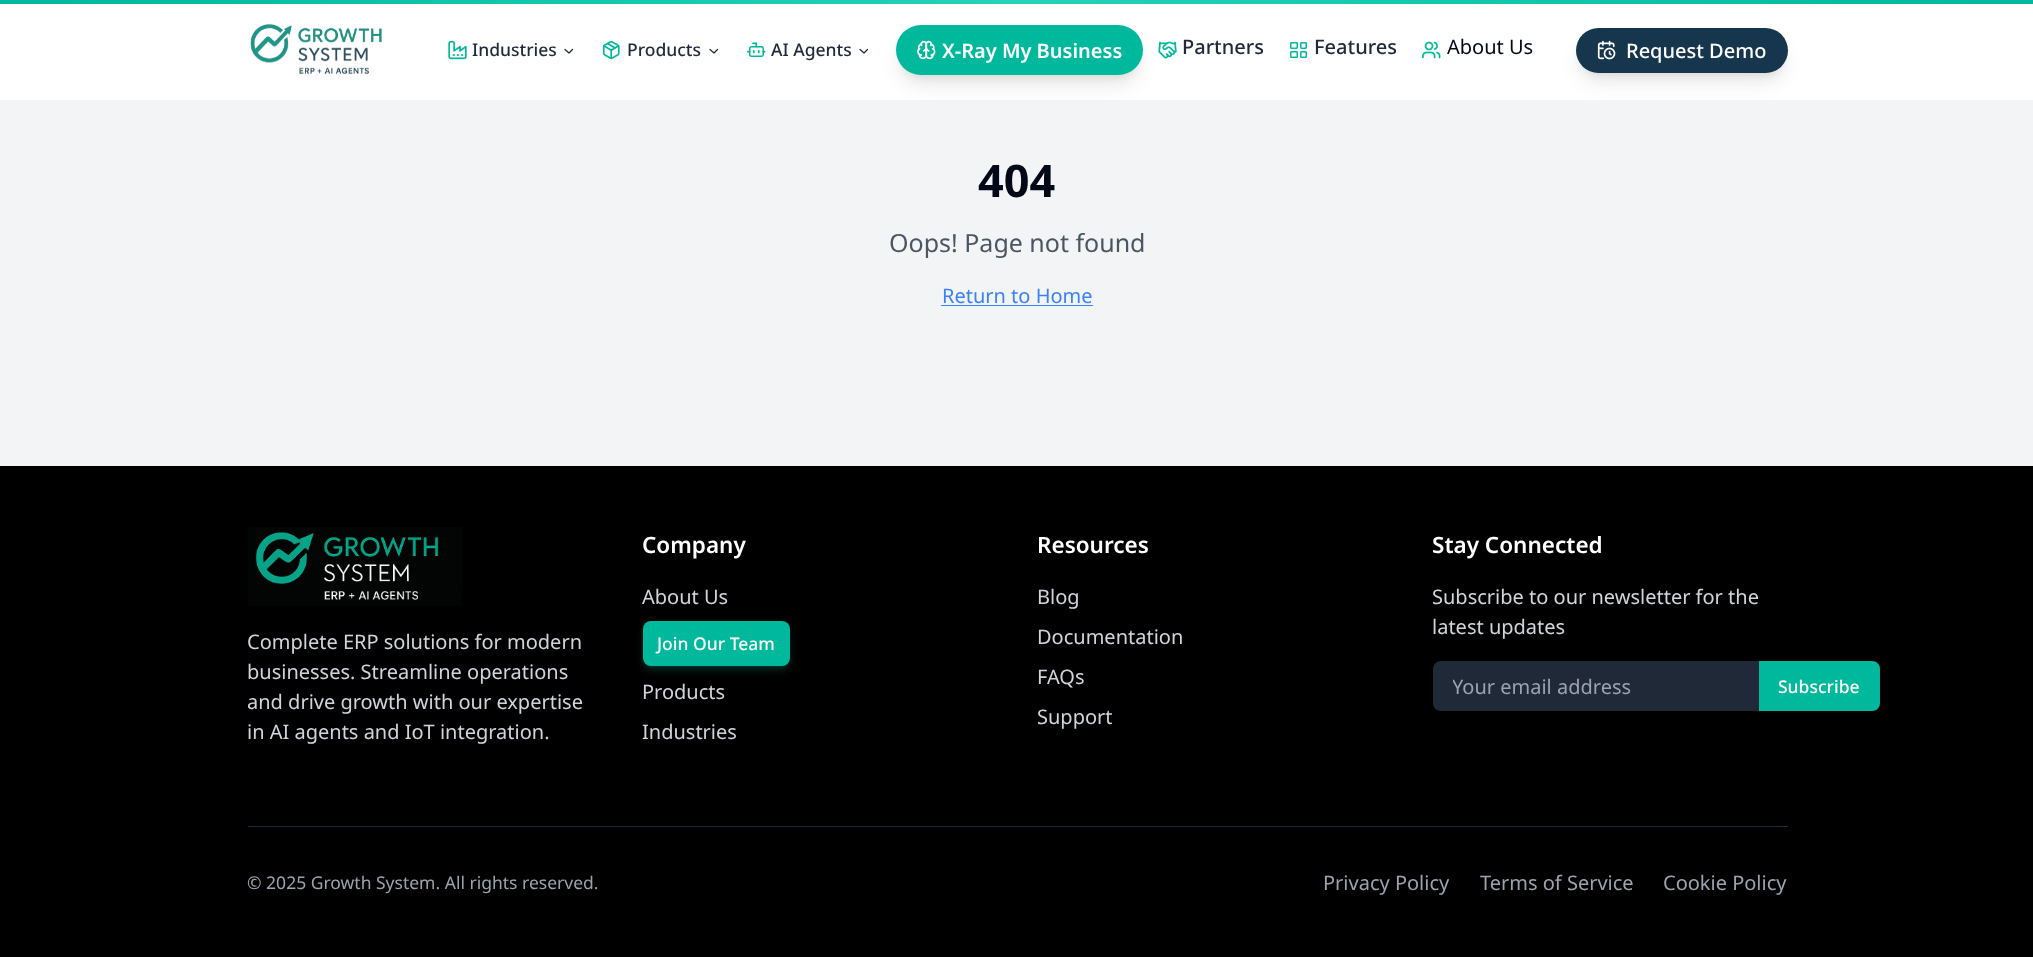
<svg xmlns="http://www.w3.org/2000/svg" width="2033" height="957">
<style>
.a{font:500 17.5px Noto Sans;fill:#1e293b}
.b{font:600 20px Noto Sans;fill:#fff}
.c{font:500 20px Noto Sans;fill:#1e293b}
.d{font:20px Noto Sans;fill:#020817}
.e{font:500 20px Noto Sans;fill:#fff}
.f{font:bold 45px Noto Sans;fill:#020817}
.g{font:25px Noto Sans;fill:#4b5563}
.h{font:20px Noto Sans;fill:#3b82f6}
.i{font:20px Noto Sans;fill:#d1d5db}
.j{font:600 22.5px Noto Sans;fill:#fff}
.k{font:500 17.5px Noto Sans;fill:#fff}
.l{font:20px Noto Sans;fill:#9ca3af}
.m{font:17.5px Noto Sans;fill:#9ca3af}
</style>
<defs>
<linearGradient id="g1" gradientUnits="userSpaceOnUse" x1="0" y1="1.9" x2="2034" y2="1.9"><stop offset="0" stop-color="#00b89c"/><stop offset="0.5" stop-color="#22d3b6"/><stop offset="1" stop-color="#00b89c"/></linearGradient>
<clipPath id="clip1"><path d="M1453 673h286v27H1453z"/></clipPath>
</defs>
<rect width="100%" height="100%" fill="#f3f4f6"/>
<path fill="#fff" d="M0 4h2033v96H0z"/>
<path fill="url(#g1)" d="M0 0h2033v4H0z"/>
<image href="1.png" x="250" y="24" width="132" height="51"/>
<image href="2.png" x="448" y="40" width="19" height="20"/>
<path fill="none" stroke="#1e293b" stroke-width="1.2" stroke-linecap="round" stroke-linejoin="round" d="M565 49.5l4 3.5l3.5-3.5"/>
<image href="3.png" x="602" y="40" width="18" height="20"/>
<path fill="none" stroke="#1e293b" stroke-width="1.2" stroke-linecap="round" stroke-linejoin="round" d="M710 49.5l4 3.5l3.5-3.5"/>
<image href="4.png" x="747" y="42" width="19" height="15"/>
<path fill="none" stroke="#1e293b" stroke-width="1.2" stroke-linecap="round" stroke-linejoin="round" d="M860 49.5l4 3.5l3.5-3.5"/>
<rect fill="#0000001a" filter="blur(4px)" x="901" y="35" width="237" height="40" rx="20"/>
<rect fill="#0000001a" filter="blur(9.5px)" x="900" y="41" width="239" height="43" rx="21.5"/>
<rect fill="#00b89c" x="896" y="25" width="247" height="50" rx="25"/>
<image href="5.png" x="917" y="40" width="19" height="20"/>
<image href="6.png" x="1158" y="41" width="19" height="18"/>
<image href="7.png" x="1290" y="42" width="17" height="16"/>
<image href="8.png" x="1422" y="41" width="19" height="18"/>
<rect fill="#0000001a" filter="blur(4px)" x="1581" y="38" width="202" height="35" rx="17.5"/>
<rect fill="#0000001a" filter="blur(9.5px)" x="1580" y="44" width="204" height="37" rx="18.5"/>
<rect fill="#16364d" x="1576" y="28" width="212" height="45" rx="22.5"/>
<image href="9.png" x="1597" y="40" width="19" height="20"/>
<path fill="#3b82f6" d="M941 305h152v1H941z"/>
<path fill="#000" d="M0 466h2033v491H0z"/>
<image href="10.png" x="248" y="527" width="214" height="79"/>
<rect fill="#00b89c33" filter="blur(2.5px)" x="645" y="626" width="143" height="40" rx="5"/>
<rect fill="#00b89c33" filter="blur(4px)" x="644" y="628" width="145" height="42" rx="6"/>
<rect fill="#00b89c" x="643" y="621" width="147" height="45" rx="8"/>
<path fill="#1f2937" d="M1441 661h318v50h-318c-4.5 0-8-3.5-8-8v-34c0-4.5 3.5-8 8-8z"/>
<path fill="#00b89c" d="M1759 661h113c4.5 0 8 3.5 8 8v34c0 4.5-3.5 8-8 8h-113z"/>
<path fill="#1f2937" d="M248 826h1540v1H248z"/>
<text class="a" x="472" y="56">Industries</text>
<text class="a" x="627" y="56">Products</text>
<text class="a" x="771" y="56">AI Agents</text>
<text class="b" x="942" y="58">X-Ray My Business</text>
<text class="c" x="1182" y="54">Partners</text>
<text class="c" x="1314" y="54">Features</text>
<text class="d" x="1447" y="54">About Us</text>
<text class="e" x="1626" y="58">Request Demo</text>
<text class="f" x="978" y="197">404</text>
<text class="g" x="889" y="252">Oops! Page not found</text>
<text class="h" x="942" y="303">Return to Home</text>
<text class="i" x="247" y="649">Complete ERP solutions for modern</text>
<text class="i" x="247" y="679">businesses. Streamline operations</text>
<text class="i" x="247" y="709">and drive growth with our expertise</text>
<text class="i" x="247" y="739">in AI agents and IoT integration.</text>
<text class="j" x="642" y="553">Company</text>
<text class="i" x="642" y="604">About Us</text>
<text class="k" x="657" y="650">Join Our Team</text>
<text class="i" x="642" y="699">Products</text>
<text class="i" x="642" y="739">Industries</text>
<text class="j" x="1037" y="553">Resources</text>
<text class="i" x="1037" y="604">Blog</text>
<text class="i" x="1037" y="644">Documentation</text>
<text class="i" x="1037" y="684">FAQs</text>
<text class="i" x="1037" y="724">Support</text>
<text class="j" x="1432" y="553">Stay Connected</text>
<text class="i" x="1432" y="604">Subscribe to our newsletter for the</text>
<text class="i" x="1432" y="634">latest updates</text>
<g clip-path="url(#clip1)">
<text class="l" x="1452" y="694">Your email address</text>
</g>
<text class="k" x="1778" y="693">Subscribe</text>
<text class="m" x="247" y="889">© 2025 Growth System. All rights reserved.</text>
<text class="l" x="1323" y="890">Privacy Policy</text>
<text class="l" x="1480" y="890">Terms of Service</text>
<text class="l" x="1663" y="890">Cookie Policy</text>
</svg>
